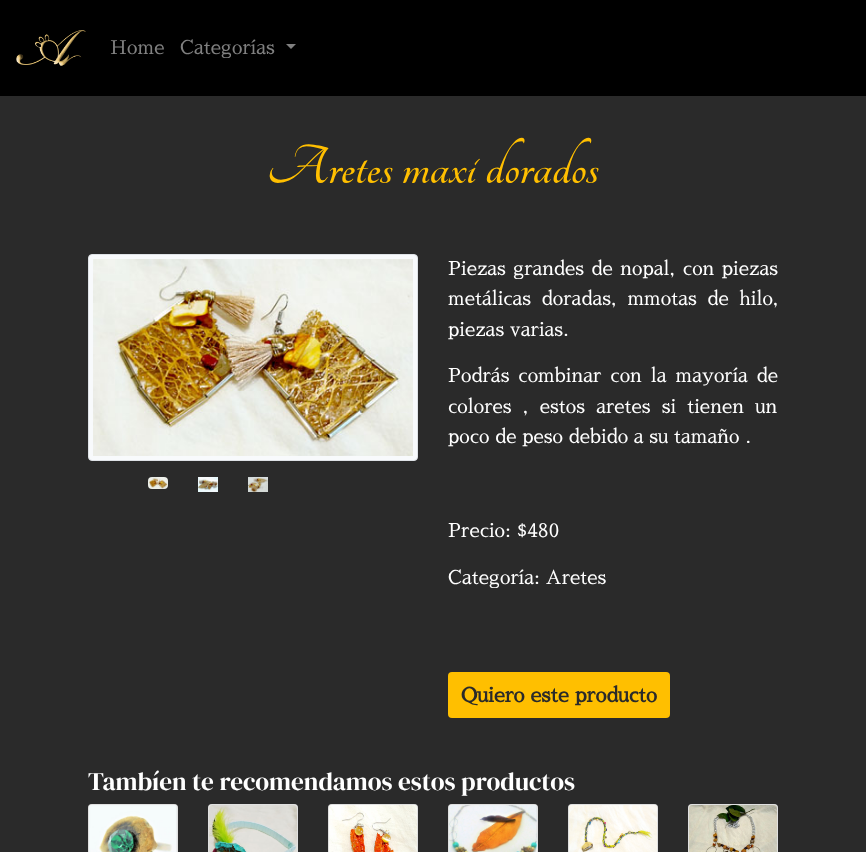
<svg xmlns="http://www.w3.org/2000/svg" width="866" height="852">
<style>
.a{font:19px Sawarabi Mincho;fill:#808080}
.b{font:bold 60px Tangerine;fill:#ffbf00}
.c{font:19px Sawarabi Mincho;fill:#fff}
.d{font:bold 20px Sawarabi Mincho;fill:#2a2a2a}
.e{font:25.25px DM Serif Display;fill:#fff}
</style>
<rect width="100%" height="100%" fill="#2a2a2a"/>
<path fill="#000" d="M0 0h866v96H0z"/>
<image href="1.png" x="16" y="30" width="70" height="36"/>
<path fill="#808080" d="M286 44h10l-5 5z"/>
<rect fill="#f8fafc" stroke="#dee2e6" x="88.5" y="254.5" width="329" height="206" rx="3.5"/>
<image href="2.png" x="93" y="259" width="320" height="197"/>
<image href="3.png" x="148" y="477" width="20" height="12"/>
<image href="4.png" x="198" y="477" width="20" height="15"/>
<image href="5.png" x="248" y="477" width="20" height="15"/>
<rect fill="#ffbf00" x="448" y="672" width="222" height="46" rx="4"/>
<rect fill="#fff" x="88" y="804" width="90" height="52" rx="4"/>
<rect fill="none" stroke="#0000001f" x="88.5" y="804.5" width="89" height="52" rx="3.5"/>
<image href="6.png" x="89" y="805" width="88" height="47"/>
<rect fill="#fff" x="208" y="804" width="90" height="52" rx="4"/>
<rect fill="none" stroke="#0000001f" x="208.5" y="804.5" width="89" height="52" rx="3.5"/>
<image href="7.png" x="209" y="805" width="88" height="47"/>
<rect fill="#fff" x="328" y="804" width="90" height="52" rx="4"/>
<rect fill="none" stroke="#0000001f" x="328.5" y="804.5" width="89" height="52" rx="3.5"/>
<image href="8.png" x="329" y="805" width="88" height="47"/>
<rect fill="#fff" x="448" y="804" width="90" height="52" rx="4"/>
<rect fill="none" stroke="#0000001f" x="448.5" y="804.5" width="89" height="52" rx="3.5"/>
<image href="9.png" x="449" y="805" width="88" height="47"/>
<rect fill="#fff" x="568" y="804" width="90" height="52" rx="4"/>
<rect fill="none" stroke="#0000001f" x="568.5" y="804.5" width="89" height="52" rx="3.5"/>
<image href="10.png" x="569" y="805" width="88" height="47"/>
<rect fill="#fff" x="688" y="804" width="90" height="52" rx="4"/>
<rect fill="none" stroke="#0000001f" x="688.5" y="804.5" width="89" height="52" rx="3.5"/>
<image href="11.png" x="689" y="805" width="88" height="47"/>
<text class="a" x="110" y="54">Home</text>
<text class="a" x="180" y="54">Categorías</text>
<text class="b" x="267" y="183">Aretes maxi dorados</text>
<text class="c" x="448" y="275" word-spacing="1.75">Piezas grandes de nopal, con piezas</text>
<text class="c" x="448" y="305" word-spacing="5">metálicas doradas, mmotas de hilo,</text>
<text class="c" x="448" y="336">piezas varias.</text>
<text class="c" x="448" y="382" word-spacing="3.25">Podrás combinar con la mayoría de</text>
<text class="c" x="448" y="413" word-spacing="5.5">colores , estos aretes si tienen un</text>
<text class="c" x="448" y="443">poco de peso debido a su tamaño .</text>
<text class="c" x="448" y="537">Precio: $480</text>
<text class="c" x="448" y="584">Categoría: Aretes</text>
<text class="d" x="461" y="702">Quiero este producto</text>
<text class="e" x="88" y="790">Tambíen te recomendamos estos productos</text>
</svg>
